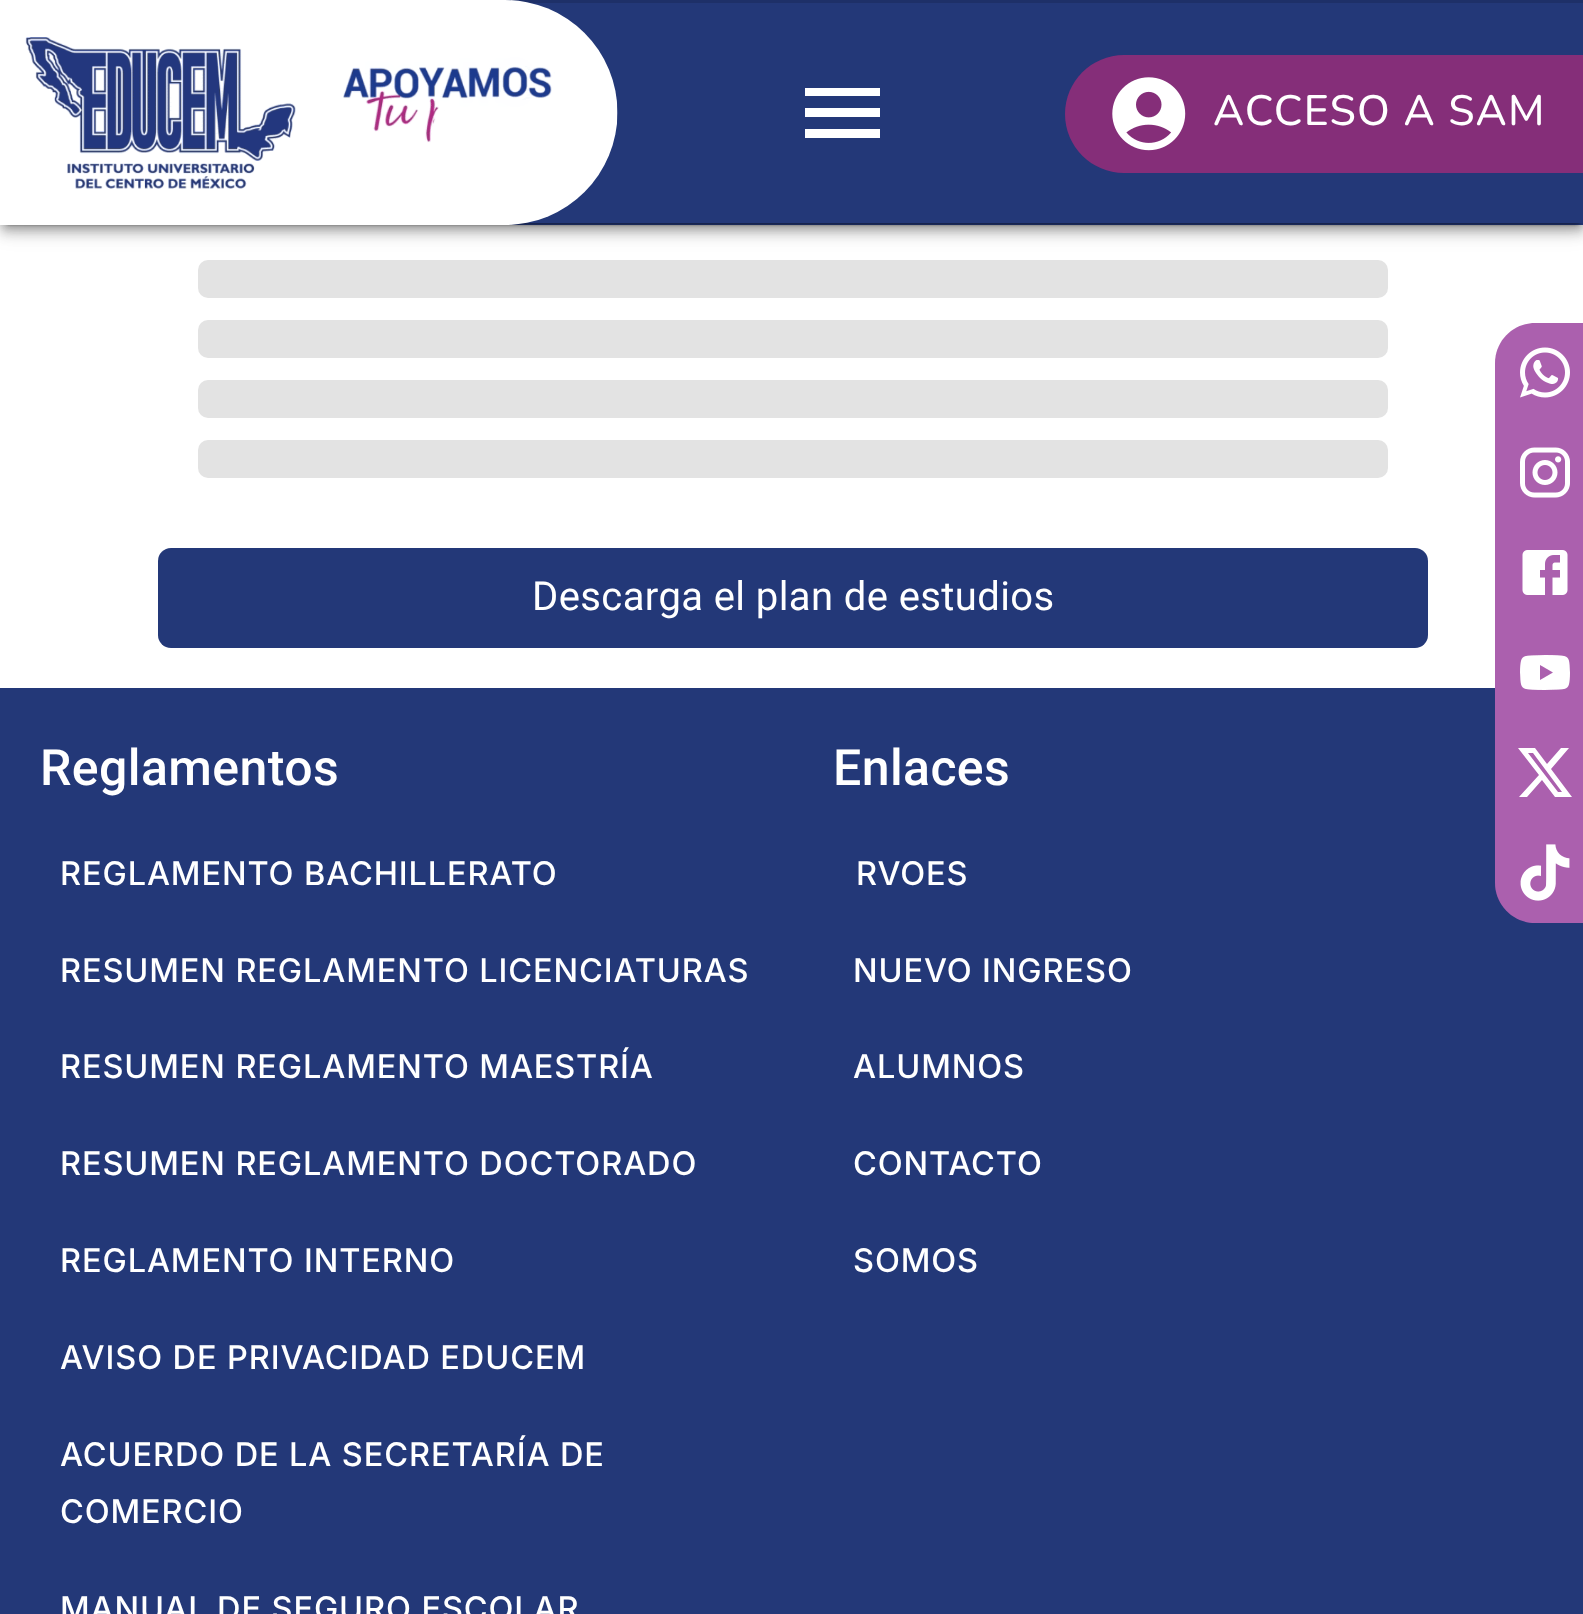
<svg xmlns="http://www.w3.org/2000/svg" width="1583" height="1614">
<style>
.a{font:500 42.5px Nunito;letter-spacing:1.25px;fill:#fff}
.b{font:40px Roboto;letter-spacing:0.4px;fill:#fff}
.c{font:500 50px Roboto;letter-spacing:0.4px;fill:#fff}
.d{font:500 32.5px Inter;letter-spacing:0.9px;fill:#fff}
</style>
<rect width="100%" height="100%" fill="#fff"/>
<rect fill="#e3e3e3" x="198" y="260" width="1190" height="38" rx="10"/>
<path fill="#0000001f" filter="blur(12.5px)" d="M0 3h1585v225H0z"/>
<path fill="#00000024" filter="blur(6px)" d="M0 10h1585v225H0z"/>
<path fill="#00000033" filter="blur(5px)" d="M3 8h1580v220H3z"/>
<path fill="#233878" d="M509 223h1074v2H509z"/>
<rect fill="#0000001f" filter="blur(4px)" y="5" width="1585" height="220" rx="10"/>
<rect fill="#00000024" filter="blur(1px)" y="5" width="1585" height="220" rx="10"/>
<rect fill="#00000033" filter="blur(1px)" x="3" y="10" width="1580" height="215" rx="8"/>
<path fill="#1e3068" d="M506 0h1077v3H506z"/>
<path fill="#233878" d="M525 3h1058v220H525z"/>
<image href="1.png" x="0" y="0" width="618" height="225"/>
<path fill="#fff" d="M805 138h75v-9h-75zm0-21h75v-9h-75zm0-29v8h75v-8z"/>
<path fill="#852e79" d="M1124 55h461v118h-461c-32.5 0-59-26.5-59-59c0-32.5 26.5-59 59-59z"/>
<image href="2.png" x="1112" y="77" width="74" height="74"/>
<rect fill="#e3e3e3" x="198" y="320" width="1190" height="38" rx="10"/>
<rect fill="#e3e3e3" x="198" y="380" width="1190" height="38" rx="10"/>
<rect fill="#e3e3e3" x="198" y="440" width="1190" height="38" rx="10"/>
<rect fill="#233878" x="158" y="548" width="1270" height="100" rx="13"/>
<path fill="#233878" d="M0 688h1583v926H0z"/>
<path fill="#ab60ae" d="M1535 323h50v600h-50c-22 0-40-18-40-40v-520c0-22 18-40 40-40z"/>
<image href="3.png" x="1520" y="347" width="50" height="51"/>
<image href="4.png" x="1520" y="447" width="50" height="51"/>
<image href="5.png" x="1522" y="550" width="46" height="45"/>
<image href="6.png" x="1520" y="655" width="50" height="35"/>
<path fill="#fff" d="M1561 748h8l-18 21l21 28h-17l-13-17l-15 17h-8l20-22l-21-27h17l12 16zm-3 44h4l-29-39h-5z"/>
<image href="7.png" x="1520" y="844" width="50" height="57"/>
<text class="a" x="1213" y="125">ACCESO A SAM</text>
<text class="b" x="532" y="610">Descarga el plan de estudios</text>
<text class="c" x="40" y="785">Reglamentos</text>
<text class="d" x="60" y="885">REGLAMENTO BACHILLERATO</text>
<text class="d" x="60" y="982">RESUMEN REGLAMENTO LICENCIATURAS</text>
<text class="d" x="60" y="1078">RESUMEN REGLAMENTO MAESTRÍA</text>
<text class="d" x="60" y="1175">RESUMEN REGLAMENTO DOCTORADO</text>
<text class="d" x="60" y="1272">REGLAMENTO INTERNO</text>
<text class="d" x="60" y="1369">AVISO DE PRIVACIDAD EDUCEM</text>
<text class="d" x="60" y="1466">ACUERDO DE LA SECRETARÍA DE</text>
<text class="d" x="60" y="1523">COMERCIO</text>
<text class="d" x="60" y="1620">MANUAL DE SEGURO ESCOLAR</text>
<text class="c" x="833" y="785">Enlaces</text>
<text class="d" x="856" y="885">RVOES</text>
<text class="d" x="853" y="982">NUEVO INGRESO</text>
<text class="d" x="853" y="1078">ALUMNOS</text>
<text class="d" x="853" y="1175">CONTACTO</text>
<text class="d" x="853" y="1272">SOMOS</text>
</svg>
